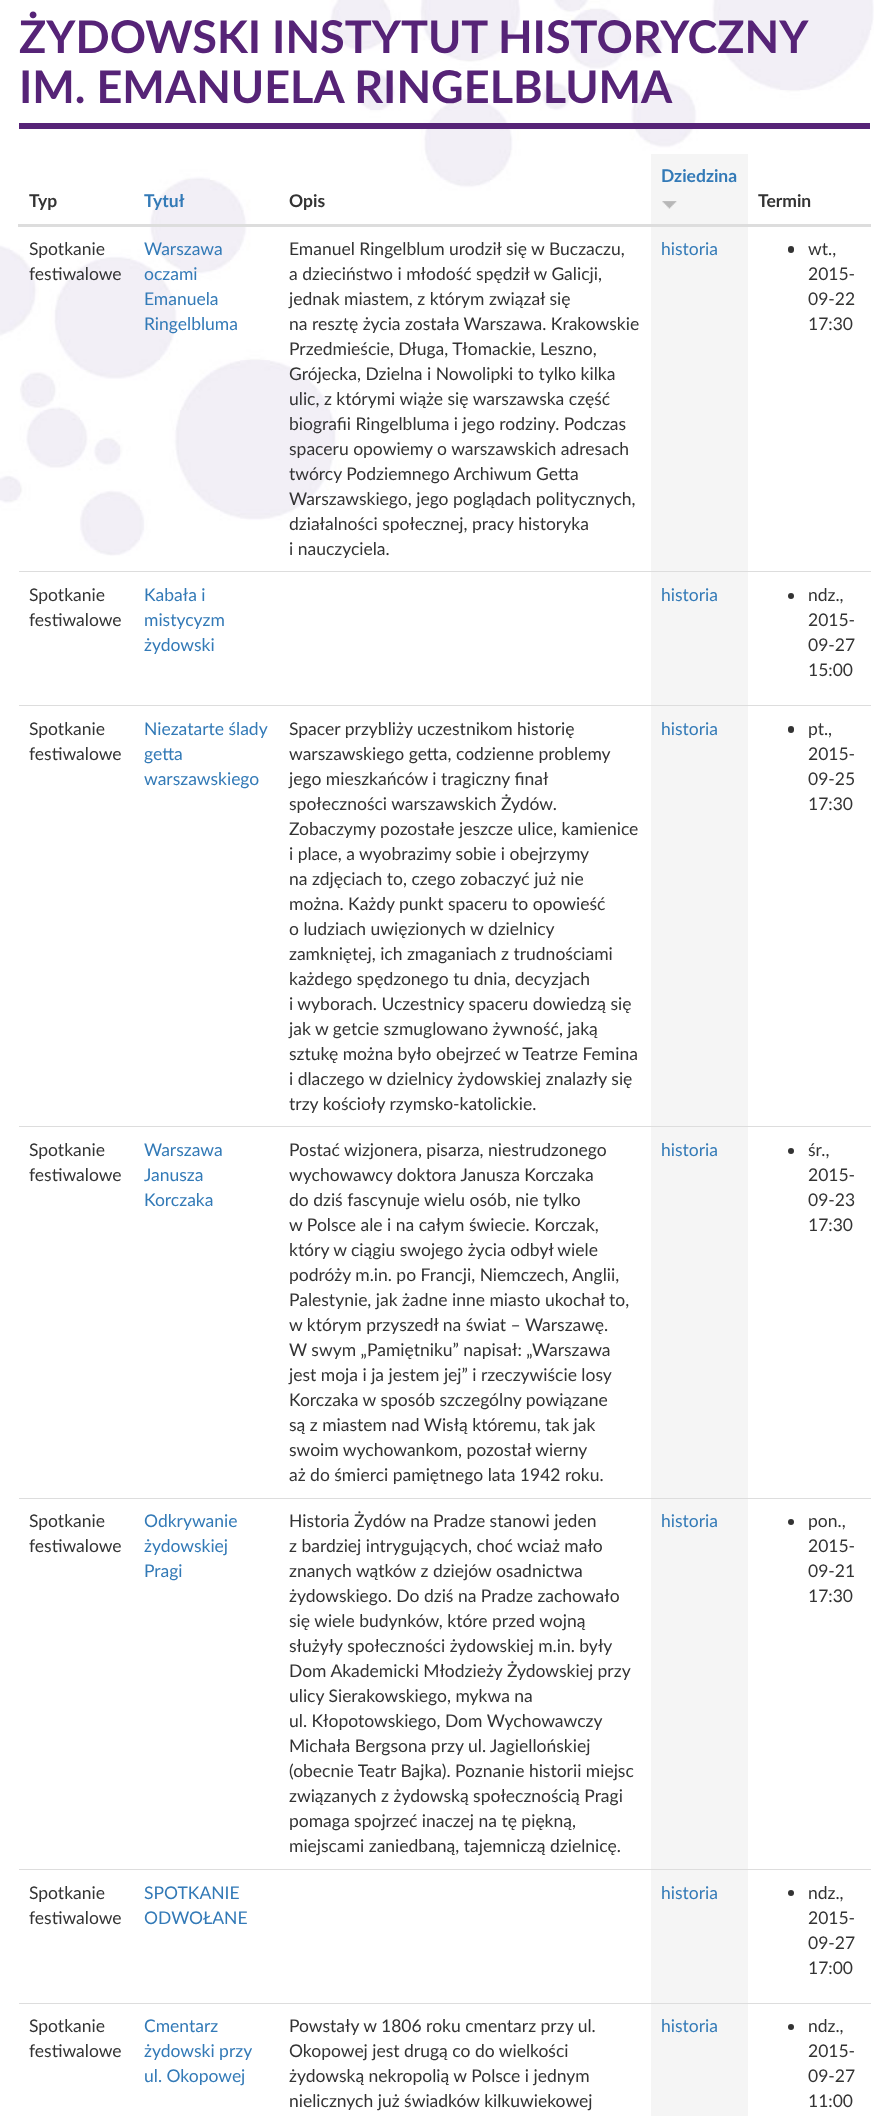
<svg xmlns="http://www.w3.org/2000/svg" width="888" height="2116">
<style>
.a{font:bold 45px Lato;fill:#562377}
.b{font:bold 17.5px Lato;fill:#337ab7}
.c{font:bold 17.5px Lato;fill:#333}
.d{font:17.5px Lato;fill:#333}
.e{font:17.5px Lato;fill:#337ab7}
</style>
<rect width="100%" height="100%" fill="#fff"/>
<image href="1.png" x="0" y="0" width="874" height="556"/>
<path fill="#562377" d="M19 123h851v6H19z"/>
<path fill="#f5f5f5" d="M651 154h97v70H651z"/>
<image href="2.png" x="662" y="201" width="15" height="8"/>
<path fill="#ddd" d="M18 224h853v3H18z"/>
<path fill="#f5f5f5" d="M651 227h97v344H651z"/>
<rect fill="#333" x="788" y="246" width="6" height="7" rx="3"/>
<path fill="#f5f5f5" d="M651 572h97v133H651z"/>
<path fill="#ddd" d="M19 571h852v1H19z"/>
<circle fill="#333" cx="791" cy="596" r="3"/>
<path fill="#f5f5f5" d="M651 706h97v420H651z"/>
<path fill="#ddd" d="M19 705h852v1H19z"/>
<rect fill="#333" x="788" y="726" width="6" height="7" rx="3"/>
<path fill="#f5f5f5" d="M651 1127h97v371H651z"/>
<path fill="#ddd" d="M19 1126h852v1H19z"/>
<circle fill="#333" cx="791" cy="1151" r="3"/>
<path fill="#f5f5f5" d="M651 1499h97v370H651z"/>
<path fill="#ddd" d="M19 1498h852v1H19z"/>
<circle fill="#333" cx="791" cy="1522" r="3"/>
<path fill="#f5f5f5" d="M651 1870h97v133H651z"/>
<path fill="#ddd" d="M19 1869h852v1H19z"/>
<circle fill="#333" cx="791" cy="1893" r="3"/>
<path fill="#f5f5f5" d="M651 2004h97v112H651z"/>
<path fill="#ddd" d="M19 2003h852v1H19z"/>
<circle fill="#333" cx="791" cy="2027" r="3"/>
<text class="a" x="19" y="53">ŻYDOWSKI INSTYTUT HISTORYCZNY</text>
<text class="a" x="19" y="103">IM. EMANUELA RINGELBLUMA</text>
<text class="b" x="661" y="182">Dziedzina</text>
<text class="c" x="29" y="207">Typ</text>
<text class="b" x="144" y="207">Tytuł</text>
<text class="c" x="289" y="207">Opis</text>
<text class="c" x="758" y="207">Termin</text>
<text class="d" x="29" y="255">Spotkanie</text>
<text class="d" x="29" y="280">festiwalowe</text>
<text class="e" x="144" y="255">Warszawa</text>
<text class="e" x="144" y="280">oczami</text>
<text class="e" x="144" y="305">Emanuela</text>
<text class="e" x="144" y="330">Ringelbluma</text>
<text class="d" x="289" y="255">Emanuel Ringelblum urodził się w Buczaczu,</text>
<text class="d" x="289" y="280">a dzieciństwo i młodość spędził w Galicji,</text>
<text class="d" x="289" y="305">jednak miastem, z którym związał się</text>
<text class="d" x="289" y="330">na resztę życia została Warszawa. Krakowskie</text>
<text class="d" x="289" y="355">Przedmieście, Długa, Tłomackie, Leszno,</text>
<text class="d" x="289" y="380">Grójecka, Dzielna i Nowolipki to tylko kilka</text>
<text class="d" x="289" y="405">ulic, z którymi wiąże się warszawska część</text>
<text class="d" x="289" y="430">biografii Ringelbluma i jego rodziny. Podczas</text>
<text class="d" x="289" y="455">spaceru opowiemy o warszawskich adresach</text>
<text class="d" x="289" y="480">twórcy Podziemnego Archiwum Getta</text>
<text class="d" x="289" y="505">Warszawskiego, jego poglądach politycznych,</text>
<text class="d" x="289" y="530">działalności społecznej, pracy historyka</text>
<text class="d" x="289" y="555">i nauczyciela.</text>
<text class="e" x="661" y="255">historia</text>
<text class="d" x="808" y="255">wt.,</text>
<text class="d" x="808" y="280">2015-</text>
<text class="d" x="808" y="305">09-22</text>
<text class="d" x="808" y="330">17:30</text>
<text class="d" x="29" y="601">Spotkanie</text>
<text class="d" x="29" y="626">festiwalowe</text>
<text class="e" x="144" y="601">Kabała i</text>
<text class="e" x="144" y="626">mistycyzm</text>
<text class="e" x="144" y="651">żydowski</text>
<text class="e" x="661" y="601">historia</text>
<text class="d" x="808" y="601">ndz.,</text>
<text class="d" x="808" y="626">2015-</text>
<text class="d" x="808" y="651">09-27</text>
<text class="d" x="808" y="676">15:00</text>
<text class="d" x="29" y="735">Spotkanie</text>
<text class="d" x="29" y="760">festiwalowe</text>
<text class="e" x="144" y="735">Niezatarte ślady</text>
<text class="e" x="144" y="760">getta</text>
<text class="e" x="144" y="785">warszawskiego</text>
<text class="d" x="289" y="735">Spacer przybliży uczestnikom historię</text>
<text class="d" x="289" y="760">warszawskiego getta, codzienne problemy</text>
<text class="d" x="289" y="785">jego mieszkańców i tragiczny finał</text>
<text class="d" x="289" y="810">społeczności warszawskich Żydów.</text>
<text class="d" x="289" y="835">Zobaczymy pozostałe jeszcze ulice, kamienice</text>
<text class="d" x="289" y="860">i place, a wyobrazimy sobie i obejrzymy</text>
<text class="d" x="289" y="885">na zdjęciach to, czego zobaczyć już nie</text>
<text class="d" x="289" y="910">można. Każdy punkt spaceru to opowieść</text>
<text class="d" x="289" y="935">o ludziach uwięzionych w dzielnicy</text>
<text class="d" x="289" y="960">zamkniętej, ich zmaganiach z trudnościami</text>
<text class="d" x="289" y="985">każdego spędzonego tu dnia, decyzjach</text>
<text class="d" x="289" y="1010">i wyborach. Uczestnicy spaceru dowiedzą się</text>
<text class="d" x="289" y="1035">jak w getcie szmuglowano żywność, jaką</text>
<text class="d" x="289" y="1060">sztukę można było obejrzeć w Teatrze Femina</text>
<text class="d" x="289" y="1085">i dlaczego w dzielnicy żydowskiej znalazły się</text>
<text class="d" x="289" y="1110">trzy kościoły rzymsko-katolickie.</text>
<text class="e" x="661" y="735">historia</text>
<text class="d" x="808" y="735">pt.,</text>
<text class="d" x="808" y="760">2015-</text>
<text class="d" x="808" y="785">09-25</text>
<text class="d" x="808" y="810">17:30</text>
<text class="d" x="29" y="1156">Spotkanie</text>
<text class="d" x="29" y="1181">festiwalowe</text>
<text class="e" x="144" y="1156">Warszawa</text>
<text class="e" x="144" y="1181">Janusza</text>
<text class="e" x="144" y="1206">Korczaka</text>
<text class="d" x="289" y="1156">Postać wizjonera, pisarza, niestrudzonego</text>
<text class="d" x="289" y="1181">wychowawcy doktora Janusza Korczaka</text>
<text class="d" x="289" y="1206">do dziś fascynuje wielu osób, nie tylko</text>
<text class="d" x="289" y="1231">w Polsce ale i na całym świecie. Korczak,</text>
<text class="d" x="289" y="1256">który w ciągiu swojego życia odbył wiele</text>
<text class="d" x="289" y="1281">podróży m.in. po Francji, Niemczech, Anglii,</text>
<text class="d" x="289" y="1306">Palestynie, jak żadne inne miasto ukochał to,</text>
<text class="d" x="289" y="1331">w którym przyszedł na świat – Warszawę.</text>
<text class="d" x="289" y="1356">W swym „Pamiętniku” napisał: „Warszawa</text>
<text class="d" x="289" y="1381">jest moja i ja jestem jej” i rzeczywiście losy</text>
<text class="d" x="289" y="1406">Korczaka w sposób szczególny powiązane</text>
<text class="d" x="289" y="1431">są z miastem nad Wisłą któremu, tak jak</text>
<text class="d" x="289" y="1456">swoim wychowankom, pozostał wierny</text>
<text class="d" x="289" y="1481">aż do śmierci pamiętnego lata 1942 roku.</text>
<text class="e" x="661" y="1156">historia</text>
<text class="d" x="808" y="1156">śr.,</text>
<text class="d" x="808" y="1181">2015-</text>
<text class="d" x="808" y="1206">09-23</text>
<text class="d" x="808" y="1231">17:30</text>
<text class="d" x="29" y="1527">Spotkanie</text>
<text class="d" x="29" y="1552">festiwalowe</text>
<text class="e" x="144" y="1527">Odkrywanie</text>
<text class="e" x="144" y="1552">żydowskiej</text>
<text class="e" x="144" y="1577">Pragi</text>
<text class="d" x="289" y="1527">Historia Żydów na Pradze stanowi jeden</text>
<text class="d" x="289" y="1552">z bardziej intrygujących, choć wciaż mało</text>
<text class="d" x="289" y="1577">znanych wątków z dziejów osadnictwa</text>
<text class="d" x="289" y="1602">żydowskiego. Do dziś na Pradze zachowało</text>
<text class="d" x="289" y="1627">się wiele budynków, które przed wojną</text>
<text class="d" x="289" y="1652">służyły społeczności żydowskiej m.in. były</text>
<text class="d" x="289" y="1677">Dom Akademicki Młodzieży Żydowskiej przy</text>
<text class="d" x="289" y="1702">ulicy Sierakowskiego, mykwa na</text>
<text class="d" x="289" y="1727">ul. Kłopotowskiego, Dom Wychowawczy</text>
<text class="d" x="289" y="1752">Michała Bergsona przy ul. Jagiellońskiej</text>
<text class="d" x="289" y="1777">(obecnie Teatr Bajka). Poznanie historii miejsc</text>
<text class="d" x="289" y="1802">związanych z żydowską społecznością Pragi</text>
<text class="d" x="289" y="1827">pomaga spojrzeć inaczej na tę piękną,</text>
<text class="d" x="289" y="1852">miejscami zaniedbaną, tajemniczą dzielnicę.</text>
<text class="e" x="661" y="1527">historia</text>
<text class="d" x="808" y="1527">pon.,</text>
<text class="d" x="808" y="1552">2015-</text>
<text class="d" x="808" y="1577">09-21</text>
<text class="d" x="808" y="1602">17:30</text>
<text class="d" x="29" y="1899">Spotkanie</text>
<text class="d" x="29" y="1924">festiwalowe</text>
<text class="e" x="144" y="1899">SPOTKANIE</text>
<text class="e" x="144" y="1924">ODWOŁANE</text>
<text class="e" x="661" y="1899">historia</text>
<text class="d" x="808" y="1899">ndz.,</text>
<text class="d" x="808" y="1924">2015-</text>
<text class="d" x="808" y="1949">09-27</text>
<text class="d" x="808" y="1974">17:00</text>
<text class="d" x="29" y="2032">Spotkanie</text>
<text class="d" x="29" y="2057">festiwalowe</text>
<text class="e" x="144" y="2032">Cmentarz</text>
<text class="e" x="144" y="2057">żydowski przy</text>
<text class="e" x="144" y="2082">ul. Okopowej</text>
<text class="d" x="289" y="2032">Powstały w 1806 roku cmentarz przy ul.</text>
<text class="d" x="289" y="2057">Okopowej jest drugą co do wielkości</text>
<text class="d" x="289" y="2082">żydowską nekropolią w Polsce i jednym</text>
<text class="d" x="289" y="2107">nielicznych już świadków kilkuwiekowej</text>
<text class="e" x="661" y="2032">historia</text>
<text class="d" x="808" y="2032">ndz.,</text>
<text class="d" x="808" y="2057">2015-</text>
<text class="d" x="808" y="2082">09-27</text>
<text class="d" x="808" y="2107">11:00</text>
</svg>
